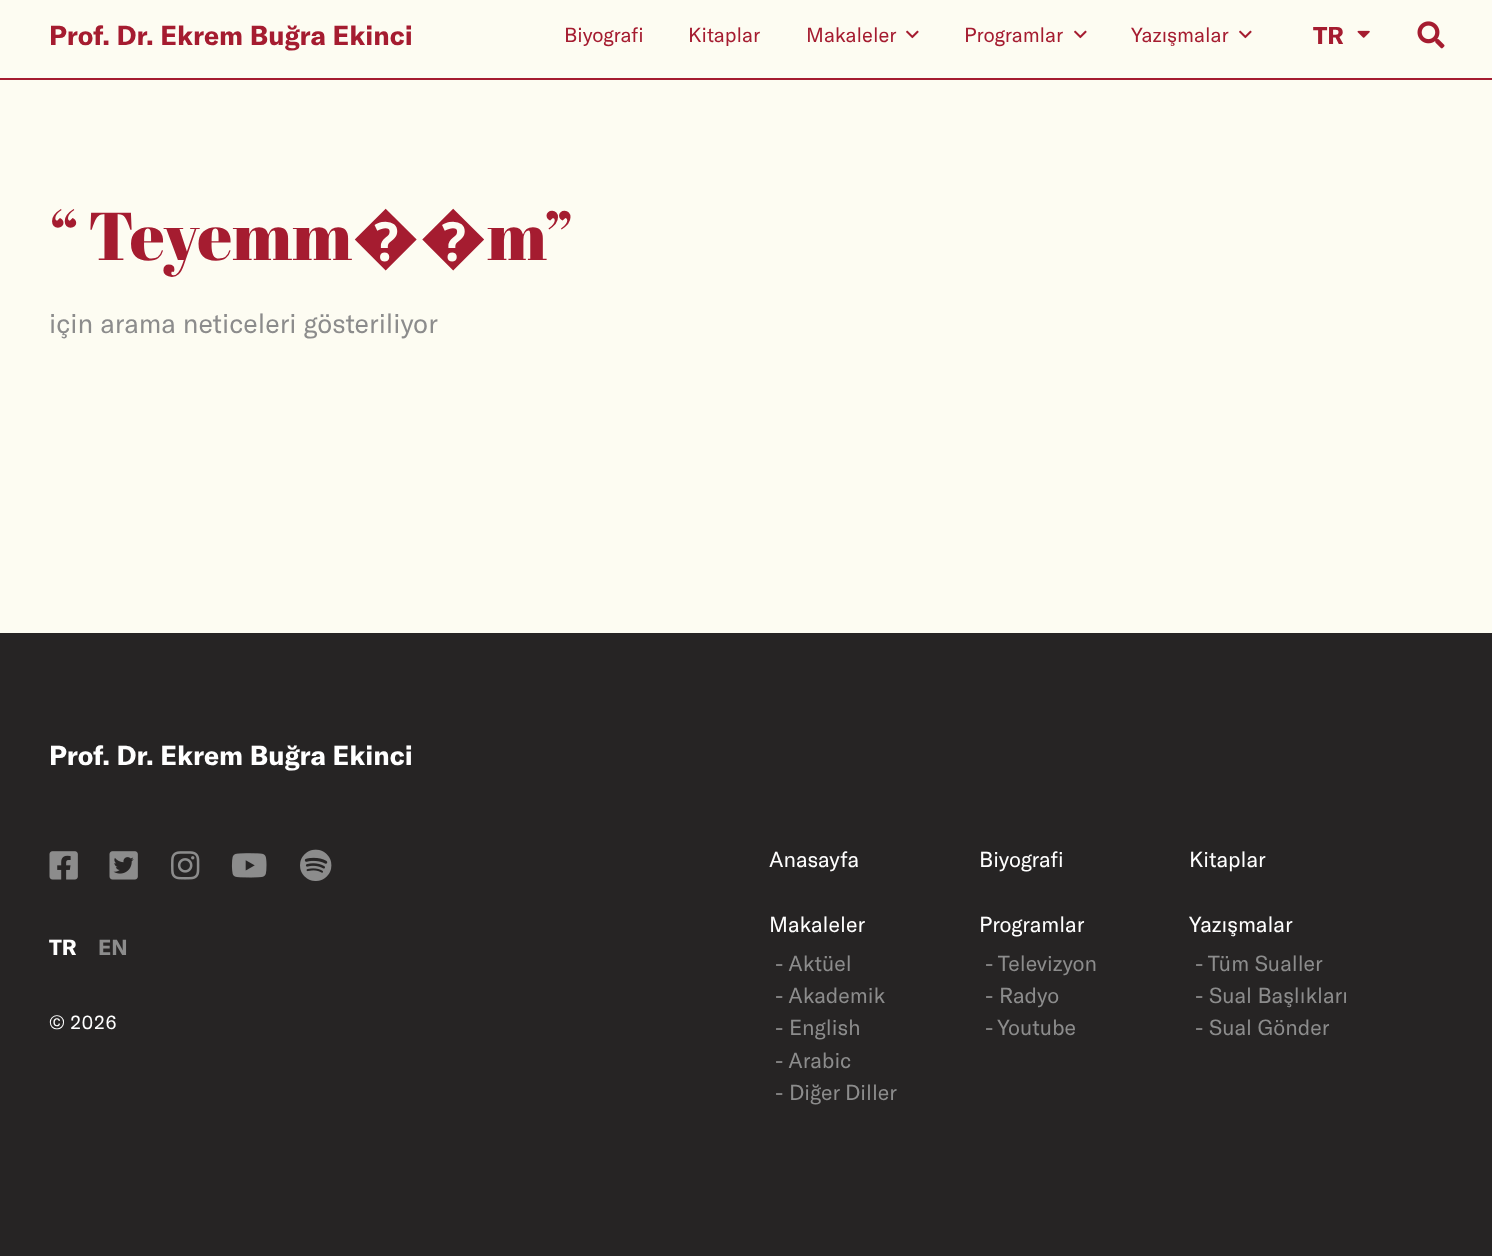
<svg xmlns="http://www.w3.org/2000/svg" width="1492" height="1256">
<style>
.a{font:bold 27px GT America;fill:#a51c30}
.b{font:20.25px GT America;fill:#a51c30}
.c{font:bold 24px GT America;fill:#a51c30}
.d{font:67.5px Abril Fatface;fill:#a51c30}
.e{font:67.5px Noto Sans;fill:#a51c30}
.f{font:27px GT America;fill:#8c8c8c}
.g{font:bold 27px GT America;fill:#fff}
.h{font:bold 21.5px GT America;fill:#fff}
.i{font:bold 21.5px GT America;fill:#8c8c8c}
.j{font:19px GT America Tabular;fill:#fff}
.k{font:21.5px GT America;fill:#fff}
.l{font:21.5px GT America;fill:#8c8c8c}
</style>
<rect width="100%" height="100%" fill="#fdfcf2"/>
<path fill="#a51c30" d="M0 78h1492v2H0z"/>
<image href="1.png" x="906" y="30" width="13" height="9"/>
<image href="1.png" x="1074" y="30" width="13" height="9"/>
<image href="1.png" x="1239" y="30" width="13" height="9"/>
<image href="2.png" x="1357" y="30" width="13" height="8"/>
<image href="3.png" x="1417" y="21" width="28" height="28"/>
<path fill="#262424" d="M0 633h1492v623H0z"/>
<image href="4.png" x="49" y="851" width="29" height="29"/>
<image href="5.png" x="109" y="851" width="29" height="29"/>
<image href="6.png" x="171" y="851" width="29" height="29"/>
<image href="7.png" x="231" y="853" width="36" height="25"/>
<image href="8.png" x="300" y="849" width="32" height="32"/>
<text class="a" x="49" y="45">Prof. Dr. Ekrem Buğra Ekinci</text>
<text class="b" x="564" y="42">Biyografi</text>
<text class="b" x="688" y="42">Kitaplar</text>
<text class="b" x="806" y="42">Makaleler</text>
<text class="b" x="964" y="42">Programlar</text>
<text class="b" x="1131" y="42">Yazışmalar</text>
<text class="c" x="1313" y="44">TR</text>
<text class="d" x="49" y="260">“</text>
<text class="d" x="88" y="260">Teyemm</text>
<text class="e" x="352" y="260">��</text>
<text class="d" x="487" y="260">m”</text>
<text class="f" x="49" y="333">için arama neticeleri gösteriliyor</text>
<text class="g" x="49" y="765">Prof. Dr. Ekrem Buğra Ekinci</text>
<text class="h" x="49" y="955">TR</text>
<text class="i" x="98" y="955">EN</text>
<text class="j" x="49" y="1029">© 2026</text>
<text class="k" x="769" y="867">Anasayfa</text>
<text class="k" x="979" y="867">Biyografi</text>
<text class="k" x="1189" y="867">Kitaplar</text>
<text class="k" x="769" y="932">Makaleler</text>
<text class="l" x="775" y="971">- Aktüel</text>
<text class="l" x="775" y="1003">- Akademik</text>
<text class="l" x="775" y="1035">- English</text>
<text class="l" x="775" y="1068">- Arabic</text>
<text class="l" x="775" y="1100">- Diğer Diller</text>
<text class="k" x="979" y="932">Programlar</text>
<text class="l" x="985" y="971">- Televizyon</text>
<text class="l" x="985" y="1003">- Radyo</text>
<text class="l" x="985" y="1035">- Youtube</text>
<text class="k" x="1189" y="932">Yazışmalar</text>
<text class="l" x="1195" y="971">- Tüm Sualler</text>
<text class="l" x="1195" y="1003">- Sual Başlıkları</text>
<text class="l" x="1195" y="1035">- Sual Gönder</text>
</svg>
